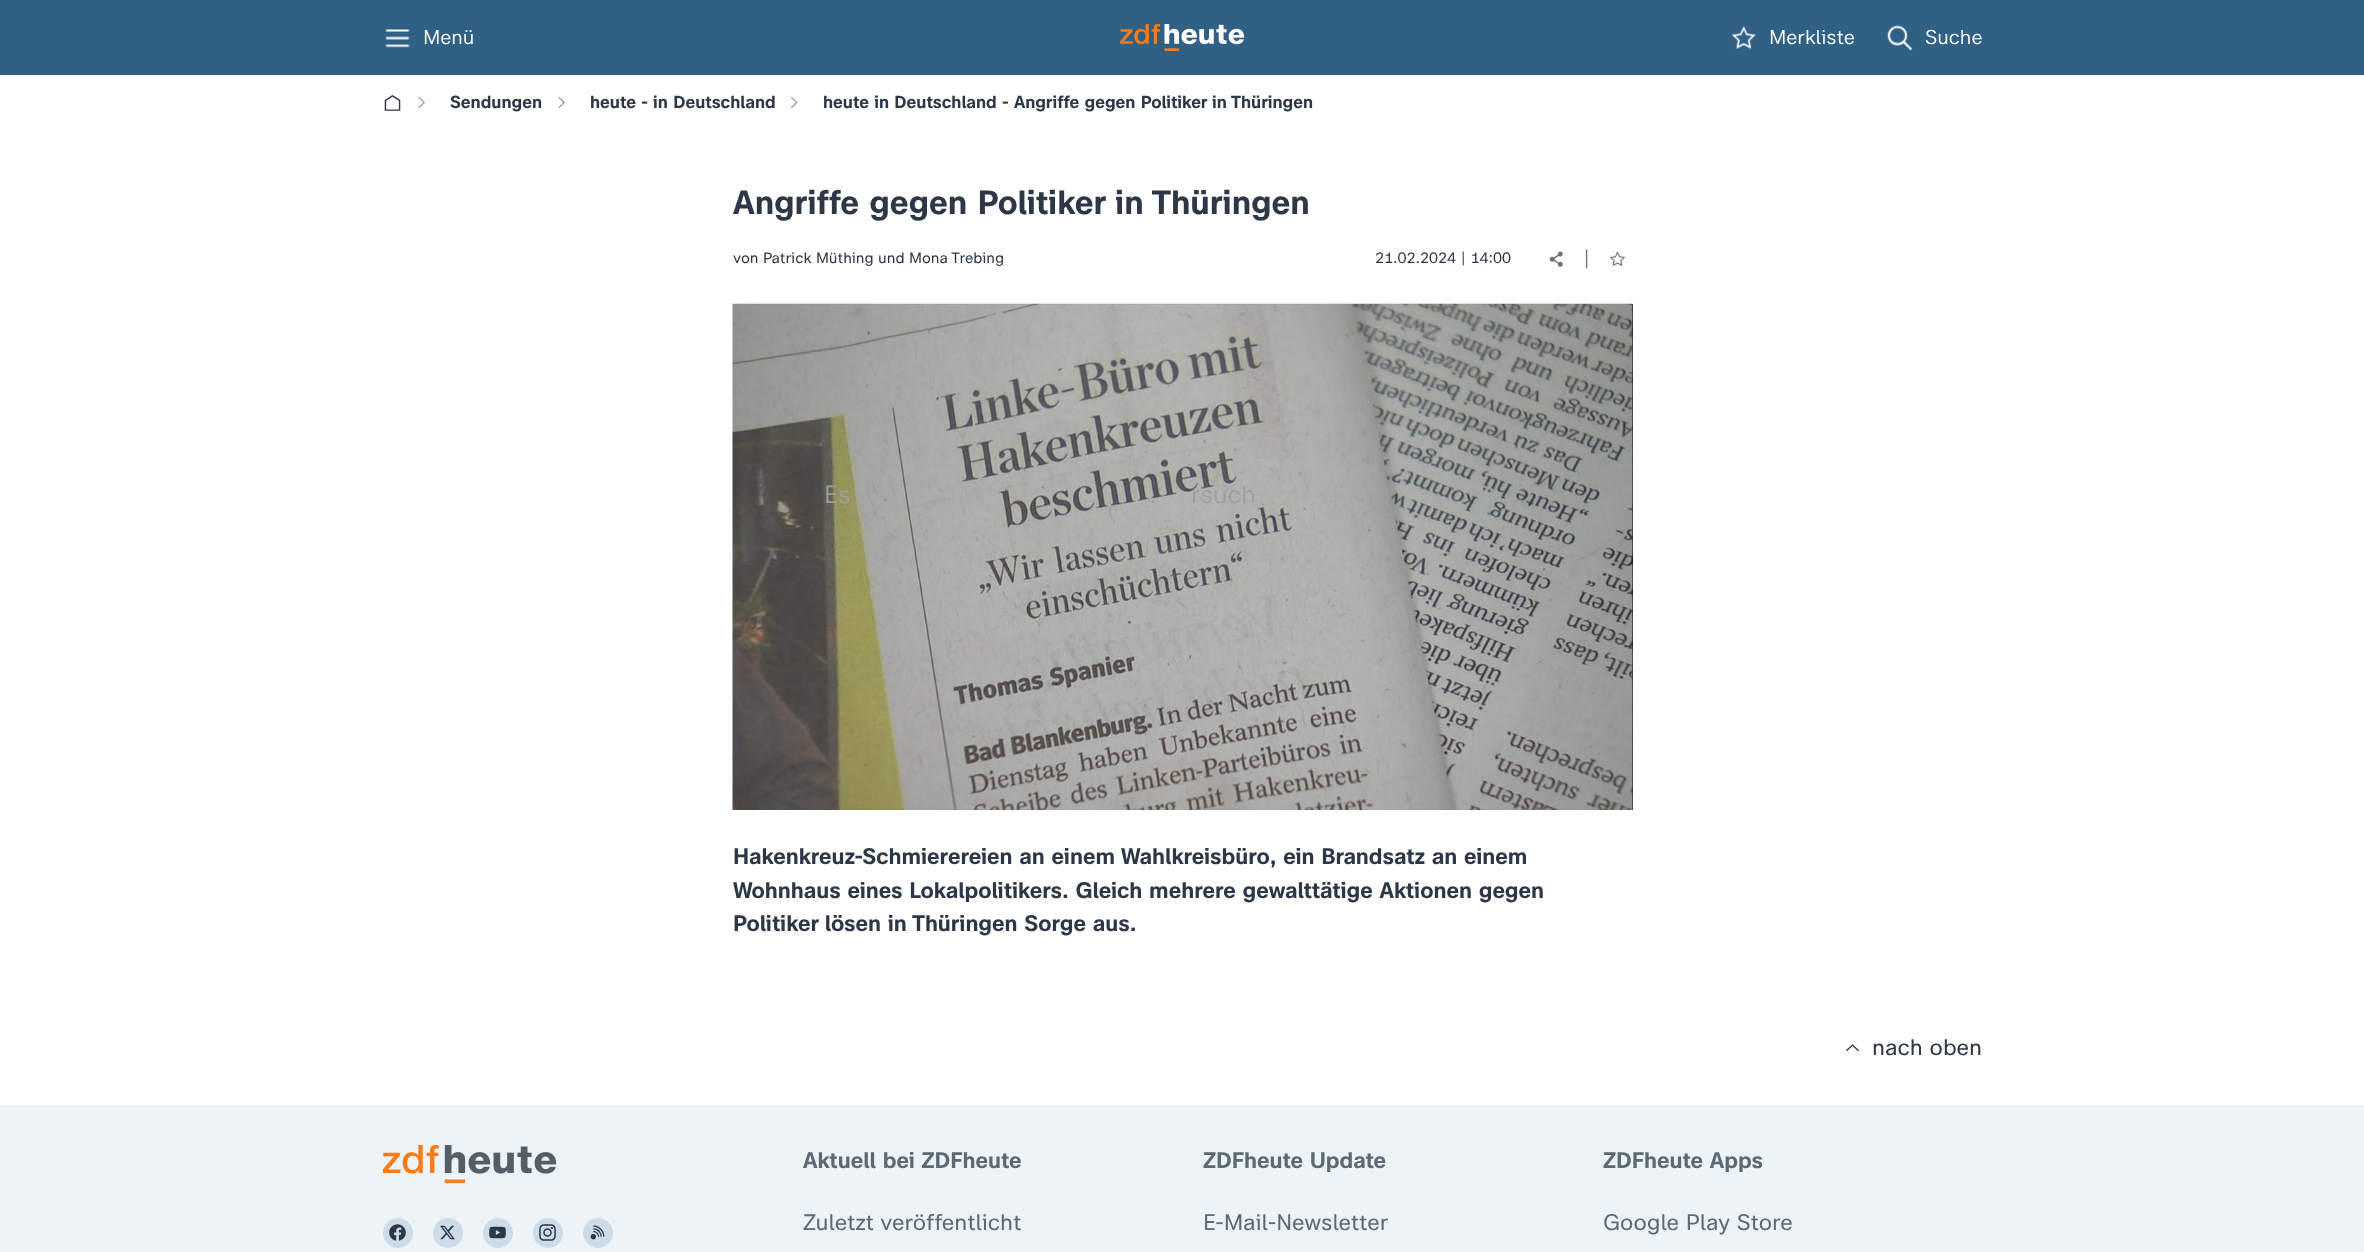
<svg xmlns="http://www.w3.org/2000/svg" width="2364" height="1252">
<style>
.a{font:300 20px 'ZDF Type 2';fill:#fff}
.b{font:bold 17.5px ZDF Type;fill:#2d3746}
.c{font:bold 33.75px ZDF Type;fill:#2d3746}
.d{font:15px ZDF Type;fill:#2d3746}
.e{font:20px ZDF Type;fill:#6c737e}
.f{font:300 25px ZDF Type;fill:#9e9e9b}
.g{font:bold 22.5px ZDF Type;fill:#2d3746}
.h{font:22.5px ZDF Type;fill:#2d3746}
.i{font:bold 22.5px ZDF Type;fill:#5c6a76}
.j{font:22.5px ZDF Type;fill:#5c6a76}
</style>
<rect width="100%" height="100%" fill="#fff"/>
<path fill="#306084" d="M0 0h2364v75H0z"/>
<image href="1.png" x="385" y="29" width="25" height="19"/>
<image href="2.png" x="1120" y="24" width="125" height="27"/>
<image href="3.png" x="1731" y="26" width="25" height="23"/>
<image href="4.png" x="1887" y="25" width="26" height="26"/>
<image href="5.png" x="384" y="95" width="17" height="16"/>
<image href="6.png" x="418" y="96" width="7" height="13"/>
<image href="6.png" x="558" y="96" width="7" height="13"/>
<image href="7.png" x="791" y="96" width="7" height="13"/>
<image href="8.png" x="1549" y="251" width="14" height="16"/>
<image href="9.png" x="1609" y="251" width="17" height="16"/>
<path fill="#000" d="M1632 304h1v506H1632z"/>
<image href="10.png" x="732" y="303" width="901" height="507"/>
<image href="11.png" x="1846" y="1044" width="13" height="8"/>
<path fill="#eef3f7" d="M0 1105h2364v147H0z"/>
<image href="12.png" x="383" y="1145" width="174" height="39"/>
<circle fill="#ccdbe8" cx="398" cy="1233" r="15"/>
<image href="13.png" x="389" y="1224" width="17" height="17"/>
<circle fill="#ccdbe8" cx="448" cy="1233" r="15"/>
<image href="14.png" x="440" y="1225" width="15" height="15"/>
<circle fill="#ccdbe8" cx="498" cy="1233" r="15"/>
<image href="15.png" x="489" y="1226" width="17" height="13"/>
<circle fill="#ccdbe8" cx="548" cy="1233" r="15"/>
<image href="16.png" x="539" y="1224" width="17" height="17"/>
<circle fill="#ccdbe8" cx="598" cy="1233" r="15"/>
<image href="17.png" x="590" y="1225" width="15" height="15"/>
<text class="a" x="423" y="44">Menü</text>
<text class="a" x="1769" y="44">Merkliste</text>
<text class="a" x="1925" y="44">Suche</text>
<text class="b" x="450" y="108">Sendungen</text>
<text class="b" x="590" y="108">heute - in Deutschland</text>
<text class="b" x="823" y="108">heute in Deutschland - Angriffe gegen Politiker in Thüringen</text>
<text class="c" x="733" y="214">Angriffe gegen Politiker in Thüringen</text>
<text class="d" x="733" y="263">von Patrick Müthing und Mona Trebing</text>
<text class="d" x="1375" y="263">21.02.2024 | 14:00</text>
<text class="e" x="1583" y="265">|</text>
<text class="f" x="824" y="503">Es</text>
<text class="f" x="1149" y="503">.</text>
<text class="f" x="1191" y="503">rsuch</text>
<text class="g" x="733" y="864">Hakenkreuz-Schmierereien an einem Wahlkreisbüro, ein Brandsatz an einem</text>
<text class="g" x="733" y="898">Wohnhaus eines Lokalpolitikers. Gleich mehrere gewalttätige Aktionen gegen</text>
<text class="g" x="733" y="931">Politiker lösen in Thüringen Sorge aus.</text>
<text class="h" x="1872" y="1055">nach oben</text>
<text class="i" x="803" y="1168">Aktuell bei ZDFheute</text>
<text class="j" x="803" y="1230">Zuletzt veröffentlicht</text>
<text class="i" x="1203" y="1168">ZDFheute Update</text>
<text class="j" x="1203" y="1230">E-Mail-Newsletter</text>
<text class="i" x="1603" y="1168">ZDFheute Apps</text>
<text class="j" x="1603" y="1230">Google Play Store</text>
</svg>
